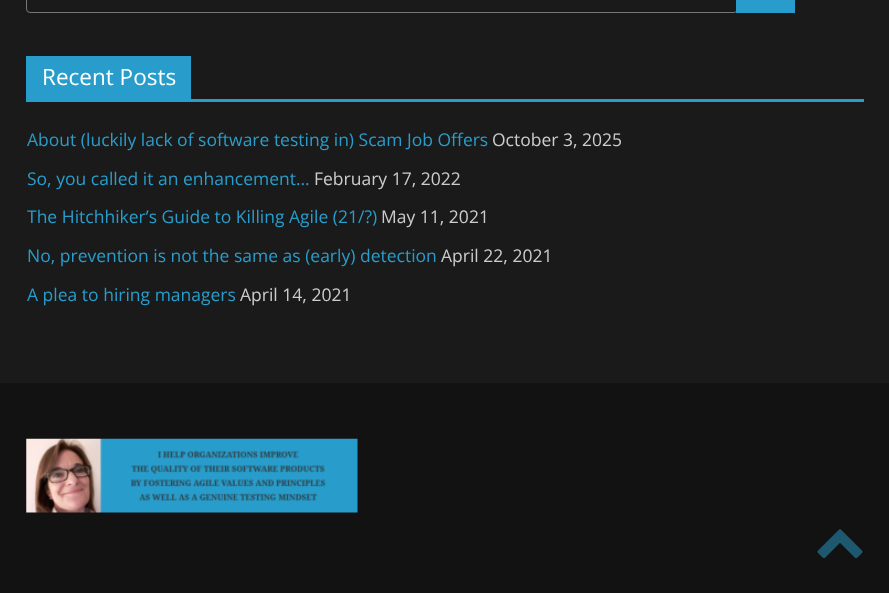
<svg xmlns="http://www.w3.org/2000/svg" width="889" height="593">
<style>
.a{font:22.5px Open Sans;fill:#fff}
.b{font:17.5px Open Sans;fill:#289dcc}
.c{font:17.5px Open Sans;fill:#ccc}
</style>
<rect width="100%" height="100%" fill="#1a1a1a"/>
<rect fill="none" stroke="#777" x="26.5" y="-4.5" width="711" height="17" rx="3.5"/>
<path fill="#289dcc" d="M736 0h59v13H736z"/>
<path fill="#289dcc" d="M26 99h838v3H26z"/>
<path fill="#289dcc" d="M26 56h165v43H26z"/>
<path fill="#121212" d="M0 383h889v210H0z"/>
<image href="1.png" x="26" y="438" width="332" height="75"/>
<image href="2.png" x="817" y="529" width="46" height="30"/>
<text class="a" x="42" y="85">Recent Posts</text>
<text class="b" x="27" y="146">About (luckily lack of software testing in) Scam Job Offers</text>
<text class="c" x="492" y="146">October 3, 2025</text>
<text class="b" x="27" y="185">So, you called it an enhancement…</text>
<text class="c" x="314" y="185">February 17, 2022</text>
<text class="b" x="27" y="223">The Hitchhiker’s Guide to Killing Agile (21/?)</text>
<text class="c" x="381" y="223">May 11, 2021</text>
<text class="b" x="27" y="262">No, prevention is not the same as (early) detection</text>
<text class="c" x="441" y="262">April 22, 2021</text>
<text class="b" x="27" y="301">A plea to hiring managers</text>
<text class="c" x="240" y="301">April 14, 2021</text>
</svg>
